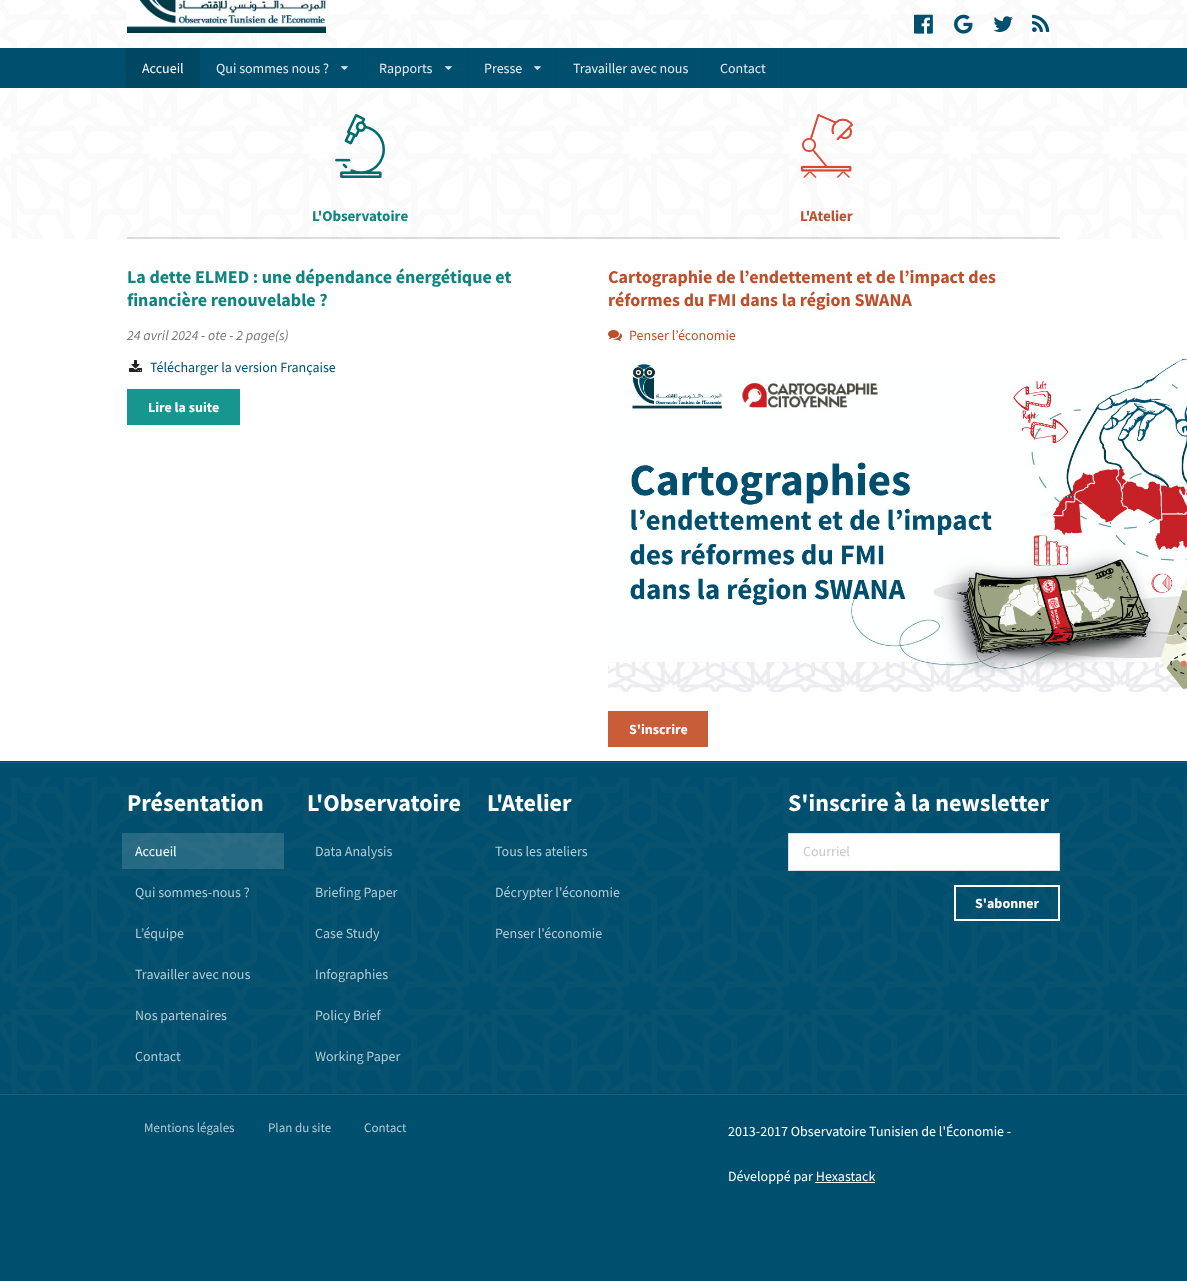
<svg xmlns="http://www.w3.org/2000/svg" width="1187" height="1282">
<style>
.a{font:14px Source Sans Pro;fill:#fff}
.b{font:14px Source Sans Pro;fill:#e6edf1}
.c{font:bold 15px Source Sans Pro;fill:#0e8580}
.d{font:bold 15px Source Sans Pro;fill:#be4f2c}
.e{font:bold 18px Source Sans Pro;fill:#0e8580}
.f{font:italic 14px Source Sans Pro;fill:#777}
.g{font:14px Source Sans Pro;fill:#004f6e}
.h{font:bold 14px Source Sans Pro;fill:#fff}
.i{font:bold 18px Source Sans Pro;fill:#be4f2c}
.j{font:14px Source Sans Pro;fill:#be4f2c}
.k{font:bold 24px Source Sans Pro;fill:#fff}
.l{font:14px Source Sans Pro;fill:#b3cbd4}
.m{font:14px Source Sans Pro;fill:#c7c7c7}
.n{font:13px Source Sans Pro;fill:#b3cbd4}
</style>
<rect width="100%" height="100%" fill="#fff"/>
<image href="1.png" x="0" y="0" width="1187" height="239"/>
<image href="2.png" x="127" y="0" width="199" height="33"/>
<image href="3.png" x="914" y="14" width="19" height="20"/>
<image href="4.png" x="954" y="14" width="19" height="20"/>
<image href="5.png" x="993" y="16" width="20" height="16"/>
<image href="6.png" x="1032" y="14" width="18" height="18"/>
<path fill="#004f6e" d="M0 48h1187v40H0z"/>
<path fill="#004763" d="M126 48h73v40H126z"/>
<path fill="#03445d" d="M199 48h1v40H199z"/>
<image href="7.png" x="341" y="66" width="7" height="4"/>
<path fill="#034b67" d="M362 48h1v40H362z"/>
<image href="7.png" x="445" y="66" width="7" height="4"/>
<path fill="#034b67" d="M467 48h1v40H467z"/>
<image href="7.png" x="534" y="66" width="7" height="4"/>
<path fill="#034b67" d="M556 48h1v40H556z"/>
<path fill="#034b67" d="M703 48h1v40H703z"/>
<path fill="#034b67" d="M781 48h1v40H781z"/>
<path fill="#22242626" d="M127 237h933v2H127z"/>
<image href="8.png" x="335" y="114" width="50" height="64"/>
<image href="9.png" x="801" y="114" width="52" height="64"/>
<image href="10.png" x="129" y="360" width="13" height="12"/>
<path fill="#179690" d="M127 389h113v36H127z"/>
<image href="11.png" x="608" y="330" width="14" height="11"/>
<image href="12.png" x="608" y="358" width="579" height="334"/>
<path fill="#c95d3a" d="M608 711h100v36H608z"/>
<path fill="#004f6e" d="M0 763h1187v518H0z"/>
<path fill="#054963" d="M0 761h1187v1H0z"/>
<path fill="#1a617d" d="M0 762h1187v1H0z"/>
<image href="13.png" x="0" y="777" width="1187" height="316"/>
<path fill="#ffffff26" d="M122 833h162v36H122z"/>
<path fill="#fff" stroke="#dedede" d="M788.5 833.5h271v37H788.5z"/>
<path fill="none" stroke="#fff" stroke-width="2" d="M955 886h104v34H955z"/>
<path fill="#054963" d="M0 1093h1187v1H0z"/>
<path fill="#1a617d" d="M0 1094h1187v1H0z"/>
<path fill="#fff" d="M815 1182h60v1H815z"/>
<text class="a" x="142" y="73">Accueil</text>
<text class="b" x="216" y="73">Qui sommes nous ?</text>
<text class="b" x="379" y="73">Rapports</text>
<text class="b" x="484" y="73">Presse</text>
<text class="b" x="573" y="73">Travailler avec nous</text>
<text class="b" x="720" y="73">Contact</text>
<text class="c" x="312" y="221">L'Observatoire</text>
<text class="d" x="800" y="221">L'Atelier</text>
<text class="e" x="127" y="283">La dette ELMED : une dépendance énergétique et</text>
<text class="e" x="127" y="306">financière renouvelable ?</text>
<text class="f" x="127" y="340">24 avril 2024 - ote - 2 page(s)</text>
<text class="g" x="150" y="372">Télécharger la version Française</text>
<text class="h" x="148" y="412">Lire la suite</text>
<text class="i" x="608" y="283">Cartographie de l’endettement et de l’impact des</text>
<text class="i" x="608" y="306">réformes du FMI dans la région SWANA</text>
<text class="j" x="629" y="340">Penser l’économie</text>
<text class="h" x="629" y="734">S'inscrire</text>
<text class="k" x="127" y="811">Présentation</text>
<text class="a" x="135" y="856">Accueil</text>
<text class="l" x="135" y="897">Qui sommes-nous ?</text>
<text class="l" x="135" y="938">L’équipe</text>
<text class="l" x="135" y="979">Travailler avec nous</text>
<text class="l" x="135" y="1020">Nos partenaires</text>
<text class="l" x="135" y="1061">Contact</text>
<text class="k" x="307" y="811">L'Observatoire</text>
<text class="l" x="315" y="856">Data Analysis</text>
<text class="l" x="315" y="897">Briefing Paper</text>
<text class="l" x="315" y="938">Case Study</text>
<text class="l" x="315" y="979">Infographies</text>
<text class="l" x="315" y="1020">Policy Brief</text>
<text class="l" x="315" y="1061">Working Paper</text>
<text class="k" x="487" y="811">L'Atelier</text>
<text class="l" x="495" y="856">Tous les ateliers</text>
<text class="l" x="495" y="897">Décrypter l'économie</text>
<text class="l" x="495" y="938">Penser l'économie</text>
<text class="k" x="788" y="811">S'inscrire à la newsletter</text>
<text class="m" x="803" y="856">Courriel</text>
<text class="h" x="975" y="908">S'abonner</text>
<text class="n" x="144" y="1132">Mentions légales</text>
<text class="n" x="268" y="1132">Plan du site</text>
<text class="n" x="364" y="1132">Contact</text>
<text class="a" x="728" y="1136">2013-2017 Observatoire Tunisien de l'Économie -</text>
<text class="a" x="728" y="1181">Développé par Hexastack</text>
</svg>
